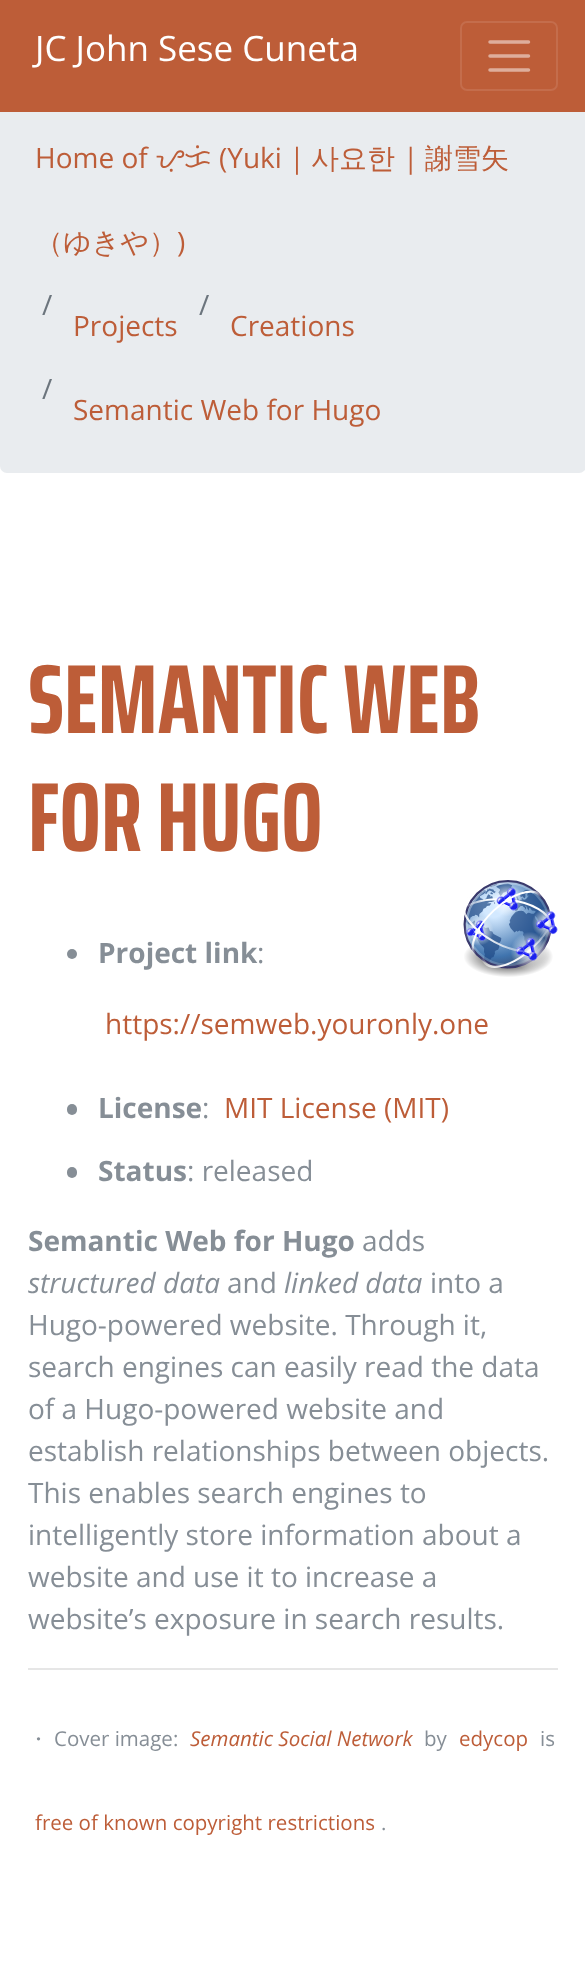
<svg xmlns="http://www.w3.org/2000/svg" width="585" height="1977">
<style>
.a{font:35px Open Sans;fill:#fff}
.b{font:28px Open Sans;fill:#bd5d38}
.c{font:28px Noto Sans Tagalog;fill:#bd5d38}
.d{font:500 28px WenQuanYi Zen Hei;fill:#bd5d38}
.e{font:28px Open Sans;fill:#6c757d}
.f{font:bold 98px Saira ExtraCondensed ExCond;fill:#bd5d38}
.g{font:bold 28px Open Sans;fill:#868e96}
.h{font:28px Open Sans;fill:#868e96}
.i{font:italic 28px Open Sans;fill:#868e96}
.j{font:500 20.5px WenQuanYi Zen Hei;fill:#868e96}
.k{font:20.5px Open Sans;fill:#868e96}
.l{font:italic 20.5px Open Sans;fill:#bd5d38}
.m{font:20.5px Open Sans;fill:#bd5d38}
</style>
<rect width="100%" height="100%" fill="#fff"/>
<rect fill="#e9ecef" y="95" width="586" height="378" rx="7"/>
<path fill="#bd5d38" d="M0 0h585v112H0z"/>
<rect fill="none" stroke="#c46d4c" stroke-width="2" x="461" y="22" width="96" height="68" rx="6"/>
<path fill="none" stroke="#deae9c" stroke-width="3.5" stroke-linecap="round" d="M490 42h38.5m-38.5 14h38.5m-38.5 14h38.5"/>
<image href="1.png" x="463" y="880" width="95" height="97"/>
<circle fill="#868e96" cx="72" cy="954" r="5"/>
<rect fill="#868e96" x="67" y="1104" width="10" height="11" rx="5"/>
<rect fill="#868e96" x="67" y="1167" width="10" height="11" rx="5"/>
<path fill="#e6e6e6" d="M28 1668h530v2H28z"/>
<text class="a" x="35" y="61">JC John Sese Cuneta</text>
<text class="b" x="35" y="168">Home of</text>
<text class="c" x="155" y="168">ᜌᜓᜃᜒ</text>
<text class="b" x="219" y="168">(Yuki |</text>
<text class="d" x="311" y="168">사요한</text>
<text class="b" x="403" y="168">|</text>
<text class="d" x="425" y="168">謝雪矢</text>
<text class="d" x="35" y="252">（ゆきや）</text>
<text class="b" x="177" y="252">)</text>
<text class="e" x="42" y="315">/</text>
<text class="b" x="73" y="336">Projects</text>
<text class="e" x="199" y="315">/</text>
<text class="b" x="230" y="336">Creations</text>
<text class="e" x="42" y="399">/</text>
<text class="b" x="73" y="420">Semantic Web for Hugo</text>
<text class="f" x="28" y="733">SEMANTIC WEB</text>
<text class="f" x="28" y="851">FOR HUGO</text>
<text class="g" x="98" y="963">Project link</text>
<text class="h" x="257" y="963">:</text>
<text class="b" x="105" y="1034">https://semweb.youronly.one</text>
<text class="g" x="98" y="1118">License</text>
<text class="h" x="202" y="1118">:</text>
<text class="b" x="224" y="1118">MIT License (MIT)</text>
<text class="g" x="98" y="1181">Status</text>
<text class="h" x="187" y="1181">: released</text>
<text class="g" x="28" y="1251">Semantic Web for Hugo</text>
<text class="h" x="362" y="1251">adds</text>
<text class="i" x="28" y="1293">structured data</text>
<text class="h" x="227" y="1293">and</text>
<text class="i" x="284" y="1293">linked data</text>
<text class="h" x="430" y="1293">into a</text>
<text class="h" x="28" y="1335">Hugo-powered website. Through it,</text>
<text class="h" x="28" y="1377">search engines can easily read the data</text>
<text class="h" x="28" y="1419">of a Hugo-powered website and</text>
<text class="h" x="28" y="1461">establish relationships between objects.</text>
<text class="h" x="28" y="1503">This enables search engines to</text>
<text class="h" x="28" y="1545">intelligently store information about a</text>
<text class="h" x="28" y="1587">website and use it to increase a</text>
<text class="h" x="28" y="1629">website’s exposure in search results.</text>
<text class="j" x="28" y="1746">・</text>
<text class="k" x="54" y="1746">Cover image:</text>
<text class="l" x="190" y="1746">Semantic Social Network</text>
<text class="k" x="424" y="1746">by</text>
<text class="m" x="459" y="1746">edycop</text>
<text class="k" x="540" y="1746">is</text>
<text class="m" x="35" y="1830">free of known copyright restrictions</text>
<text class="k" x="381" y="1830">.</text>
</svg>
